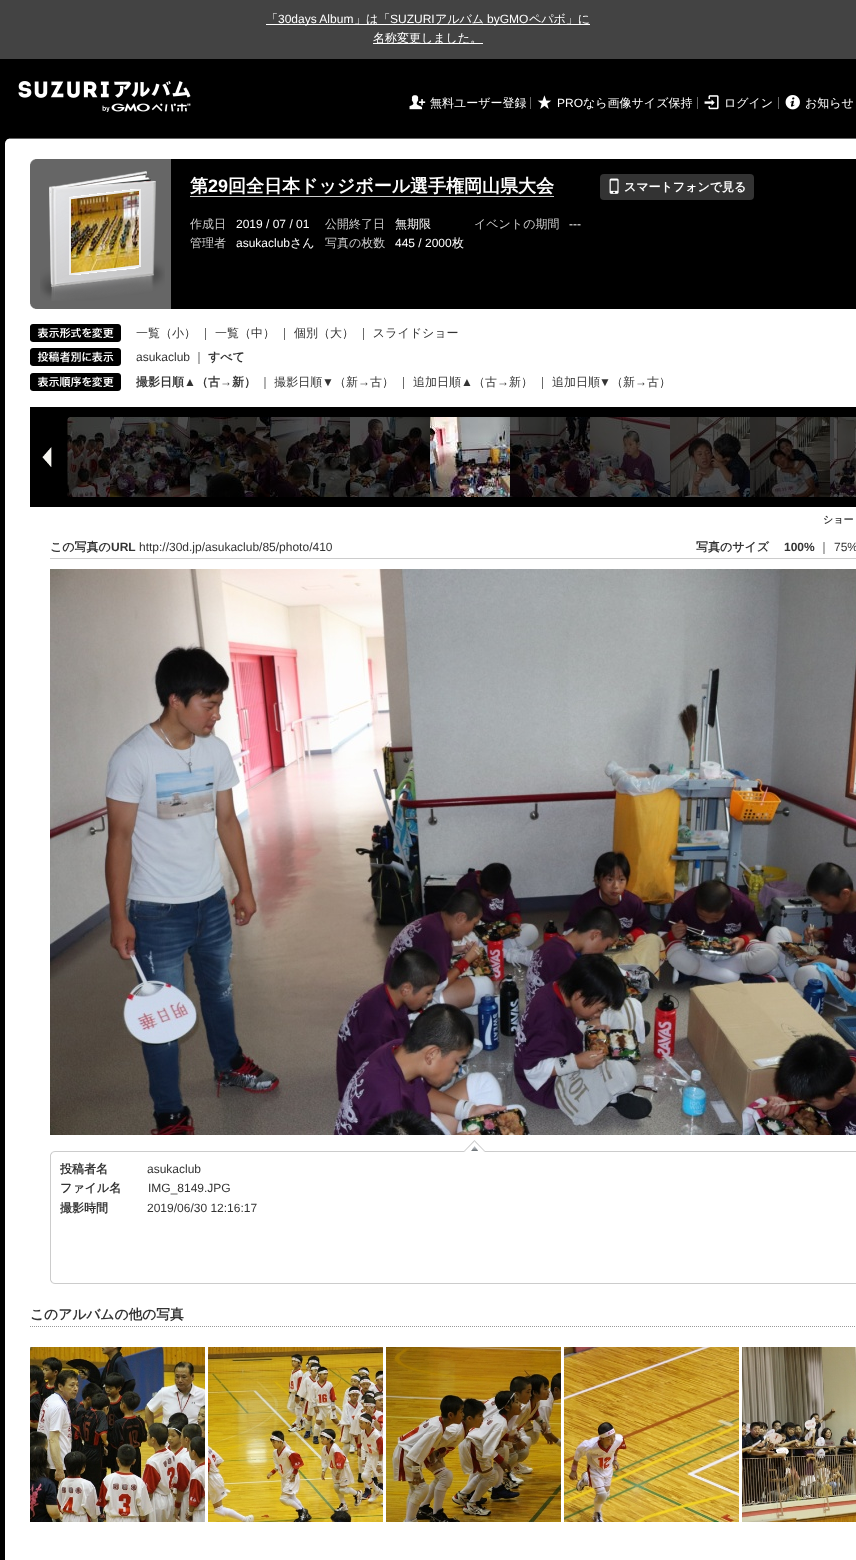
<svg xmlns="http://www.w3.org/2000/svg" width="856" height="1560">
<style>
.a{font:500 12px WenQuanYi Zen Hei;fill:#fff}
.b{font:12px Liberation Sans;fill:#fff}
.c{font:bold 18px WenQuanYi Zen Hei;fill:#fff}
.d{font:bold 18px Liberation Sans;fill:#fff}
.e{font:bold 12px WenQuanYi Zen Hei;fill:#fff}
.f{font:500 12px WenQuanYi Zen Hei;fill:#ccc}
.g{font:500 12px WenQuanYi Zen Hei;fill:#333}
.h{font:12px Liberation Sans;fill:#333}
.i{font:bold 12px WenQuanYi Zen Hei;fill:#333}
.j{font:bold 12px Liberation Sans;fill:#333}
.k{font:bold 10px WenQuanYi Zen Hei;fill:#333}
.l{font:bold 13.75px WenQuanYi Zen Hei;fill:#333}
</style>
<rect width="100%" height="100%" fill="#434343"/>
<path fill="#fff" d="M266 24h324v1H266z"/>
<path fill="#fff" d="M373 43h110v1H373z"/>
<path fill="#000" d="M0 59h856v1501H0z"/>
<image href="1.png" x="18" y="81" width="173" height="31"/>
<image href="2.png" x="409" y="95" width="17" height="15"/>
<path fill="#666" d="M530 97h1v12H530z"/>
<image href="3.png" x="537" y="95" width="15" height="14"/>
<path fill="#666" d="M697 97h1v12H697z"/>
<image href="4.png" x="704" y="95" width="15" height="15"/>
<path fill="#666" d="M778 97h1v12H778z"/>
<image href="5.png" x="785" y="95" width="15" height="15"/>
<image href="6.png" x="5" y="138" width="851" height="6"/>
<path fill="#fff" d="M5 144h851v1416H5z"/>
<image href="7.png" x="30" y="159" width="826" height="150"/>
<image href="8.png" x="30" y="159" width="7" height="7"/>
<image href="9.png" x="30" y="302" width="7" height="7"/>
<image href="10.png" x="40" y="171" width="125" height="130"/>
<path fill="#ccc" d="M190 196h364v1H190z"/>
<rect fill="#333" x="600" y="174" width="154" height="26" rx="4"/>
<image href="11.png" x="609" y="178" width="10" height="16"/>
<image href="12.png" x="30" y="324" width="91" height="18"/>
<image href="13.png" x="30" y="348" width="91" height="18"/>
<image href="14.png" x="30" y="373" width="91" height="18"/>
<path fill="#000" d="M30 407h826v100H30z"/>
<image href="16.png" x="67" y="417" width="43" height="80"/>
<image href="15.png" x="30" y="417" width="40" height="80"/>
<image href="17.png" x="110" y="417" width="80" height="80"/>
<image href="18.png" x="190" y="417" width="80" height="80"/>
<image href="19.png" x="270" y="417" width="80" height="80"/>
<image href="20.png" x="350" y="417" width="80" height="80"/>
<image href="21.png" x="430" y="417" width="80" height="80"/>
<image href="22.png" x="510" y="417" width="80" height="80"/>
<image href="23.png" x="590" y="417" width="80" height="80"/>
<image href="24.png" x="670" y="417" width="80" height="80"/>
<image href="25.png" x="750" y="417" width="80" height="80"/>
<image href="26.png" x="830" y="417" width="26" height="80"/>
<path fill="#ccc" d="M50 558h806v1H50z"/>
<image href="27.png" x="50" y="569" width="806" height="566"/>
<path fill="#ccc" d="M50 1155h1v129H50z"/>
<image href="28.png" x="50" y="1140" width="806" height="15"/>
<image href="29.png" x="50" y="1280" width="806" height="4"/>
<path fill="none" stroke="#999" stroke-dasharray="1 1" d="M30 1326.5h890"/>
<image href="30.png" x="30" y="1347" width="175" height="175"/>
<image href="31.png" x="208" y="1347" width="175" height="175"/>
<image href="32.png" x="386" y="1347" width="175" height="175"/>
<image href="33.png" x="564" y="1347" width="175" height="175"/>
<image href="34.png" x="742" y="1347" width="114" height="175"/>
<text class="a" x="266" y="23">「</text>
<text class="b" x="278" y="23">30days Album</text>
<text class="a" x="354" y="23">」は「</text>
<text class="b" x="390" y="23">SUZURI</text>
<text class="a" x="435" y="23">アルバム</text>
<text class="b" x="487" y="23">byGMO</text>
<text class="a" x="529" y="23">ペパボ」に</text>
<text class="a" x="373" y="42">名称変更しました。</text>
<text class="a" x="430" y="107">無料ユーザー登録</text>
<text class="b" x="557" y="107">PRO</text>
<text class="a" x="583" y="107">なら画像サイズ保持</text>
<text class="a" x="724" y="107">ログイン</text>
<text class="a" x="805" y="107">お知らせ</text>
<text class="c" x="190" y="192">第</text>
<text class="d" x="208" y="192">29</text>
<text class="c" x="228" y="192">回全日本ドッジボール選手権岡山県大会</text>
<text class="e" x="624" y="191">スマートフォンで見る</text>
<text class="f" x="190" y="228">作成日</text>
<text class="b" x="236" y="228">2019 / 07 / 01</text>
<text class="f" x="325" y="228">公開終了日</text>
<text class="a" x="395" y="228">無期限</text>
<text class="f" x="474" y="228">イベントの期間</text>
<text class="b" x="569" y="228">---</text>
<text class="f" x="190" y="247">管理者</text>
<text class="b" x="236" y="247">asukaclub</text>
<text class="a" x="290" y="247">さん</text>
<text class="f" x="325" y="247">写真の枚数</text>
<text class="b" x="395" y="247">445 / 2000</text>
<text class="a" x="452" y="247">枚</text>
<text class="g" x="136" y="337">一覧（小） ｜ 一覧（中） ｜ 個別（大） ｜ スライドショー</text>
<text class="h" x="136" y="361">asukaclub</text>
<text class="g" x="193" y="361">｜</text>
<text class="i" x="208" y="361">すべて</text>
<text class="i" x="136" y="386">撮影日順</text>
<text class="j" x="184" y="386">▲</text>
<text class="i" x="196" y="386">（古</text>
<text class="j" x="220" y="386">→</text>
<text class="i" x="232" y="386">新）</text>
<text class="g" x="259" y="386">｜ 撮影日順</text>
<text class="h" x="322" y="386">▼</text>
<text class="g" x="334" y="386">（新</text>
<text class="h" x="358" y="386">→</text>
<text class="g" x="370" y="386">古） ｜ 追加日順</text>
<text class="h" x="461" y="386">▲</text>
<text class="g" x="473" y="386">（古</text>
<text class="h" x="497" y="386">→</text>
<text class="g" x="509" y="386">新） ｜ 追加日順</text>
<text class="h" x="599" y="386">▼</text>
<text class="g" x="611" y="386">（新</text>
<text class="h" x="635" y="386">→</text>
<text class="g" x="647" y="386">古）</text>
<text class="k" x="823" y="523">ショー</text>
<text class="i" x="50" y="551">この写真の</text>
<text class="j" x="111" y="551">URL</text>
<text class="h" x="139" y="551">http://30d.jp/asukaclub/85/photo/410</text>
<text class="i" x="696" y="551">写真のサイズ</text>
<text class="j" x="784" y="551">100%</text>
<text class="g" x="818" y="551">｜</text>
<text class="h" x="834" y="551">75%</text>
<text class="i" x="60" y="1173">投稿者名</text>
<text class="h" x="147" y="1173">asukaclub</text>
<text class="i" x="60" y="1192">ファイル名</text>
<text class="h" x="148" y="1192">IMG_8149.JPG</text>
<text class="i" x="60" y="1212">撮影時間</text>
<text class="h" x="147" y="1212">2019/06/30 12:16:17</text>
<text class="l" x="30" y="1319">このアルバムの他の写真</text>
</svg>
